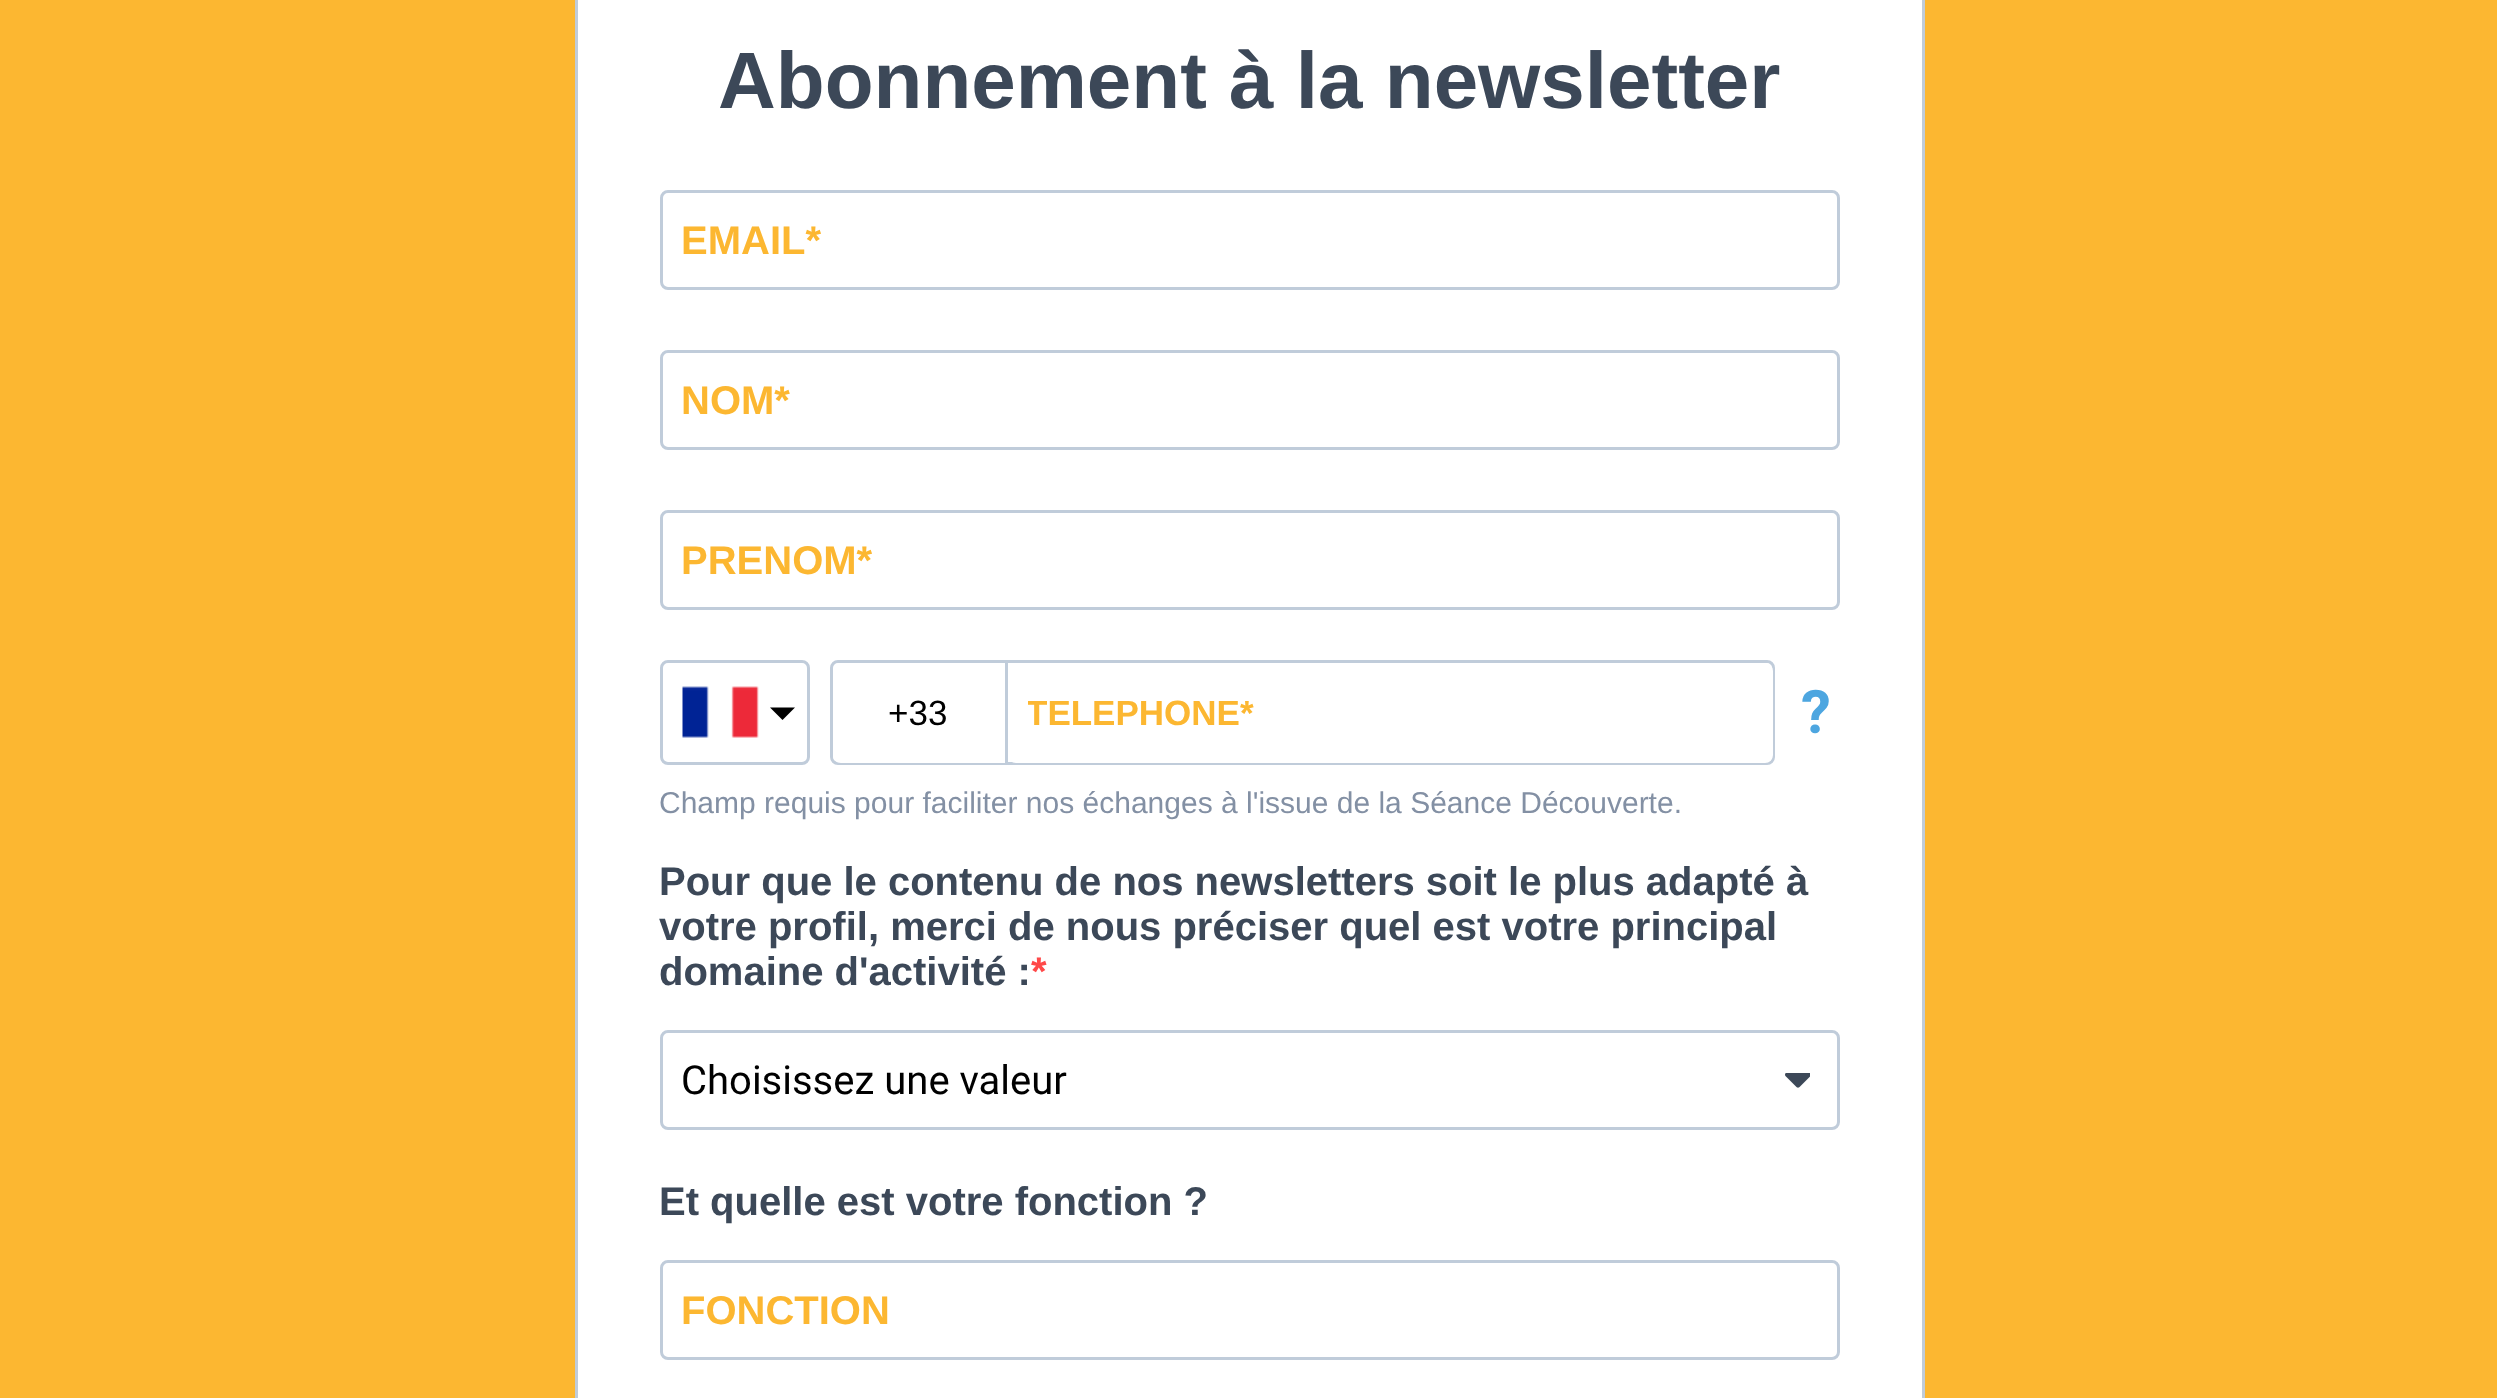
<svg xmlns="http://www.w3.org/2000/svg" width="2497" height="1398">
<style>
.a{font:bold 80px Liberation Sans;fill:#3c4858}
.b{font:bold 40px Liberation Sans;fill:#fcb731}
.c{font:35px Liberation Sans;fill:#000}
.d{font:bold 35px Liberation Sans;fill:#fcb731}
.e{font:bold 60px Roboto;fill:#4da6e0}
.f{font:30px Liberation Sans;fill:#8390a4}
.g{font:bold 40px Liberation Sans;fill:#3c4858}
.h{font:bold 40px Liberation Sans;fill:#ff4949}
.i{font:40px Roboto;fill:#000}
</style>
<defs>
<clipPath id="clip1"><path d="M1028 693h725v40H1028z"/></clipPath>
</defs>
<rect width="100%" height="100%" fill="#fcb731"/>
<path fill="#fff" stroke="#c0ccd9" stroke-width="3" d="M576.5 -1.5h1347v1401H576.5z"/>
<rect fill="none" stroke="#c0ccda" stroke-width="3" x="661.5" y="191.5" width="1177" height="97" rx="6.5"/>
<rect fill="none" stroke="#c0ccda" stroke-width="3" x="661.5" y="351.5" width="1177" height="97" rx="6.5"/>
<rect fill="none" stroke="#c0ccda" stroke-width="3" x="661.5" y="511.5" width="1177" height="97" rx="6.5"/>
<rect fill="none" stroke="#c0ccda" stroke-width="3" x="661.5" y="661.5" width="147" height="102" rx="6.5"/>
<image href="1.png" x="682" y="686" width="77" height="52"/>
<path fill="#000" d="M770 707.5h25l-12.5 12.5z"/>
<rect fill="none" stroke="#c0ccda" stroke-width="3" x="831.5" y="661.5" width="942" height="102" rx="6.5"/>
<path fill="#fff" d="M841 663h167v100h-167c-4.5 0-8-3.5-8-8v-84c0-4.5 3.5-8 8-8z"/>
<path fill="#c0ccda" d="M1005 663h3v100H1005z"/>
<rect fill="#fff" x="1008" y="663" width="765" height="100" rx="8"/>
<rect fill="none" stroke="#c0ccda" stroke-width="3" x="661.5" y="1031.5" width="1177" height="97" rx="6.5"/>
<image href="2.png" x="1785" y="1073" width="25" height="15"/>
<rect fill="none" stroke="#c0ccda" stroke-width="3" x="661.5" y="1261.5" width="1177" height="97" rx="6.5"/>
<text class="a" x="718" y="108">Abonnement à la newsletter</text>
<text class="b" x="681" y="254">EMAIL*</text>
<text class="b" x="681" y="414">NOM*</text>
<text class="b" x="681" y="574">PRENOM*</text>
<text class="c" x="888" y="725">+33</text>
<g clip-path="url(#clip1)">
<text class="d" x="1026" y="725">TELEPHONE*</text>
</g>
<text class="e" x="1801" y="733">?</text>
<text class="f" x="659" y="813">Champ requis pour faciliter nos échanges à l'issue de la Séance Découverte.</text>
<text class="g" x="659" y="895">Pour que le contenu de nos newsletters soit le plus adapté à</text>
<text class="g" x="659" y="940">votre profil, merci de nous préciser quel est votre principal</text>
<text class="g" x="659" y="985">domaine d'activité :</text>
<text class="h" x="1031" y="985">*</text>
<text class="i" x="681" y="1094">Choisissez une valeur</text>
<text class="g" x="659" y="1215">Et quelle est votre fonction ?</text>
<text class="b" x="681" y="1324">FONCTION</text>
</svg>
